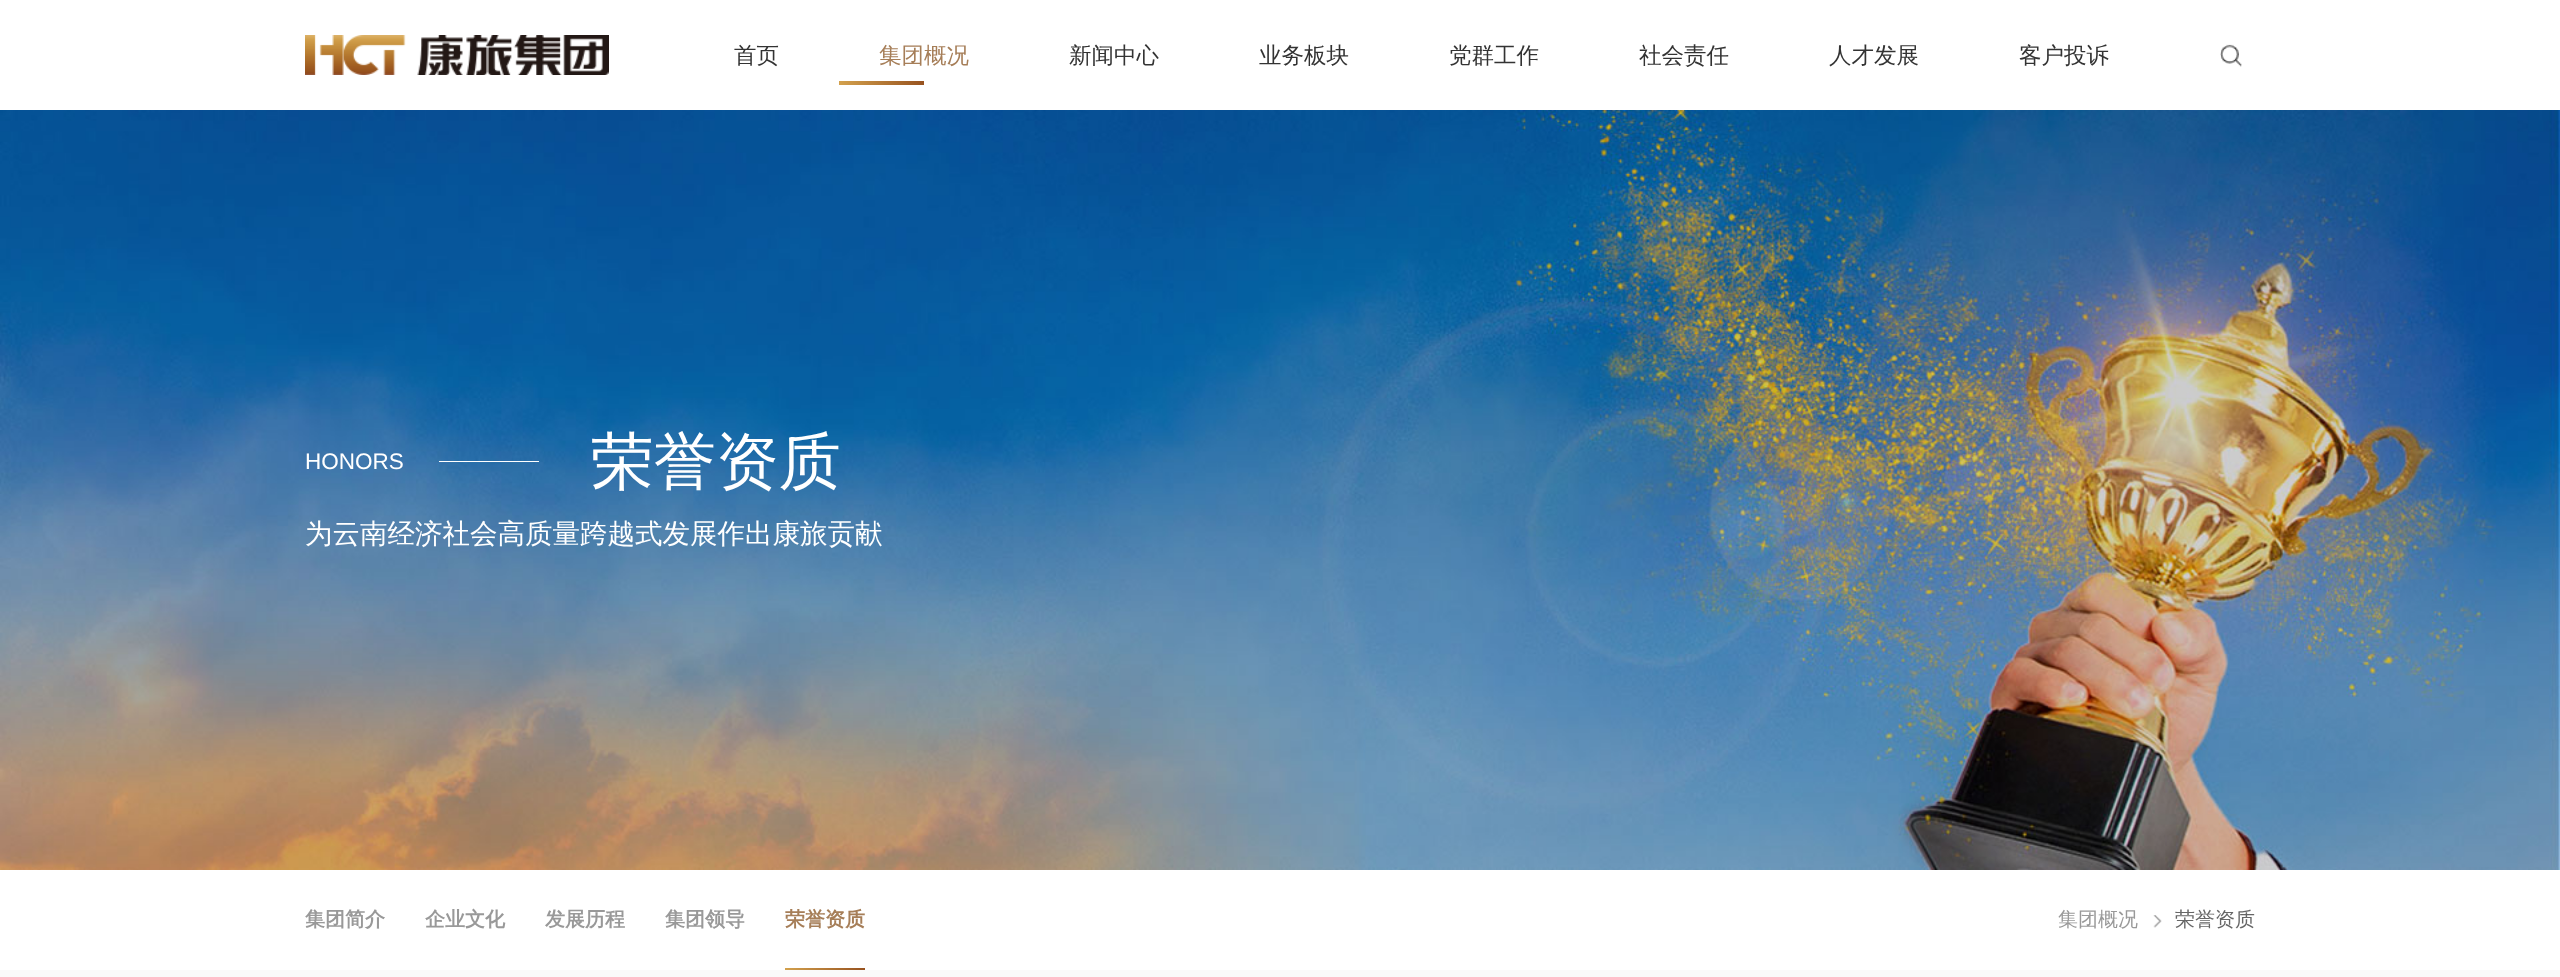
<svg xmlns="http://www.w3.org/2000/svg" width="2560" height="977">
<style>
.a{font:500 22.5px WenQuanYi Zen Hei;fill:#333}
.b{font:500 22.5px WenQuanYi Zen Hei;fill:#a67e58}
.c{font:22.5px Liberation Sans;fill:#fff}
.d{font:500 62.5px WenQuanYi Zen Hei;fill:#fff}
.e{font:500 27.5px WenQuanYi Zen Hei;fill:#fff}
.f{font:bold 20px WenQuanYi Zen Hei;fill:#999}
.g{font:bold 20px WenQuanYi Zen Hei;fill:#a67e58}
.h{font:500 20px WenQuanYi Zen Hei;fill:#999}
.i{font:500 20px WenQuanYi Zen Hei;fill:#666}
</style>
<defs>
<linearGradient id="g1" gradientUnits="userSpaceOnUse" x1="839" y1="83" x2="924" y2="83"><stop offset="0" stop-color="#d3a14d"/><stop offset="1" stop-color="#97521f"/></linearGradient>
<linearGradient id="g2" gradientUnits="userSpaceOnUse" x1="785" y1="969" x2="865" y2="969"><stop offset="0" stop-color="#d3a14d"/><stop offset="1" stop-color="#97521f"/></linearGradient>
</defs>
<rect width="100%" height="100%" fill="#fff"/>
<image href="1.png" x="305" y="35" width="304" height="40"/>
<image href="2.png" x="2220" y="44" width="22" height="23"/>
<path fill="url(#g1)" d="M839 81h85v4H839z"/>
<image href="3.png" x="0" y="110" width="2560" height="760"/>
<path fill="#fff" d="M439 461h100v1H439z"/>
<image href="4.png" x="2153" y="915" width="9" height="13"/>
<path fill="url(#g2)" d="M785 968h80v2H785z"/>
<path fill="#fafafa" d="M0 970h2560v7H0z"/>
<text class="a" x="734" y="63">首页</text>
<text class="b" x="879" y="63">集团概况</text>
<text class="a" x="1069" y="63">新闻中心</text>
<text class="a" x="1259" y="63">业务板块</text>
<text class="a" x="1449" y="63">党群工作</text>
<text class="a" x="1639" y="63">社会责任</text>
<text class="a" x="1829" y="63">人才发展</text>
<text class="a" x="2019" y="63">客户投诉</text>
<text class="c" x="305" y="469">HONORS</text>
<text class="d" x="591" y="483">荣誉资质</text>
<text class="e" x="305" y="543">为云南经济社会高质量跨越式发展作出康旅贡献</text>
<text class="f" x="305" y="926">集团简介</text>
<text class="f" x="425" y="926">企业文化</text>
<text class="f" x="545" y="926">发展历程</text>
<text class="f" x="665" y="926">集团领导</text>
<text class="g" x="785" y="926">荣誉资质</text>
<text class="h" x="2058" y="926">集团概况</text>
<text class="i" x="2175" y="926">荣誉资质</text>
</svg>
